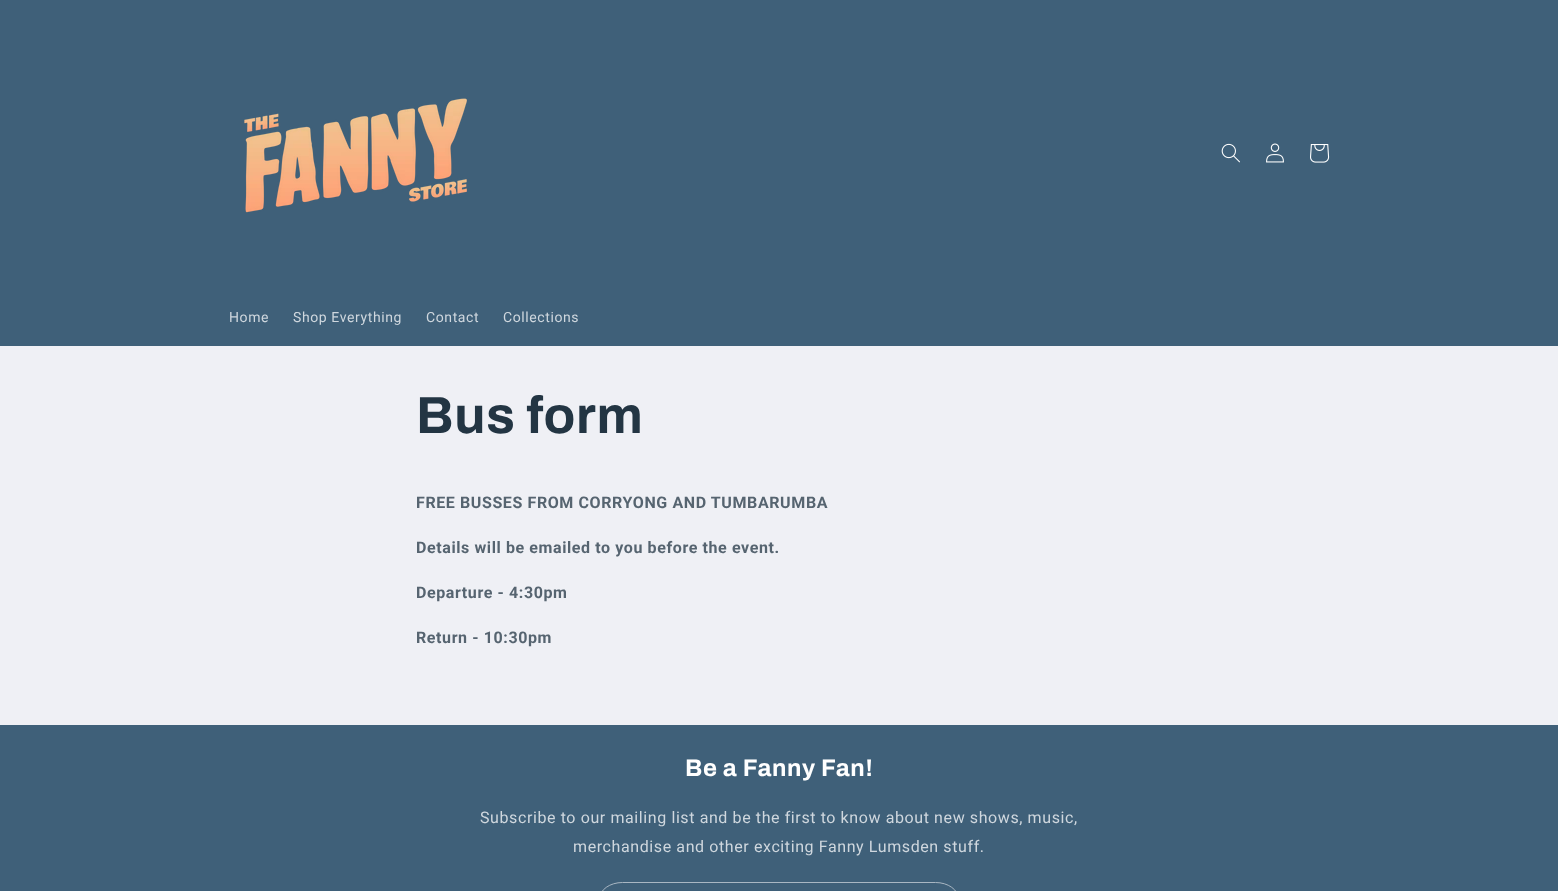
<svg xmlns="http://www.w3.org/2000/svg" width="1558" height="891">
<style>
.a{font:14px Roboto;letter-spacing:0.6px;fill:#cfd7de}
.b{font:bold 52px Archivo;letter-spacing:0.6px;fill:#233543}
.c{font:bold 16px Roboto;letter-spacing:0.6px;fill:#566470}
.d{font:bold 24px Archivo;letter-spacing:0.6px;fill:#fff}
.e{font:16px Roboto;letter-spacing:0.6px;fill:#cfd7de}
</style>
<rect width="100%" height="100%" fill="#eff0f5"/>
<path fill="#3f6079" d="M0 0h1558v346H0z"/>
<image href="1.png" x="244" y="98" width="223" height="115"/>
<image href="2.png" x="1221" y="143" width="19" height="20"/>
<image href="3.png" x="1266" y="143" width="18" height="20"/>
<image href="4.png" x="1310" y="144" width="20" height="19"/>
<path fill="#3f6079" d="M0 725h1558v166H0z"/>
<rect fill="none" stroke="#a9b7c3" x="599.5" y="882.5" width="359" height="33" rx="23"/>
<text class="a" x="229" y="322">Home</text>
<text class="a" x="293" y="322">Shop Everything</text>
<text class="a" x="426" y="322">Contact</text>
<text class="a" x="503" y="322">Collections</text>
<text class="b" x="416" y="433">Bus form</text>
<text class="c" x="416" y="508">FREE BUSSES FROM CORRYONG AND TUMBARUMBA</text>
<text class="c" x="416" y="553">Details will be emailed to you before the event.</text>
<text class="c" x="416" y="598">Departure - 4:30pm</text>
<text class="c" x="416" y="643">Return - 10:30pm</text>
<text class="d" x="685" y="776">Be a Fanny Fan!</text>
<text class="e" x="480" y="823">Subscribe to our mailing list and be the first to know about new shows, music,</text>
<text class="e" x="573" y="852">merchandise and other exciting Fanny Lumsden stuff.</text>
</svg>
